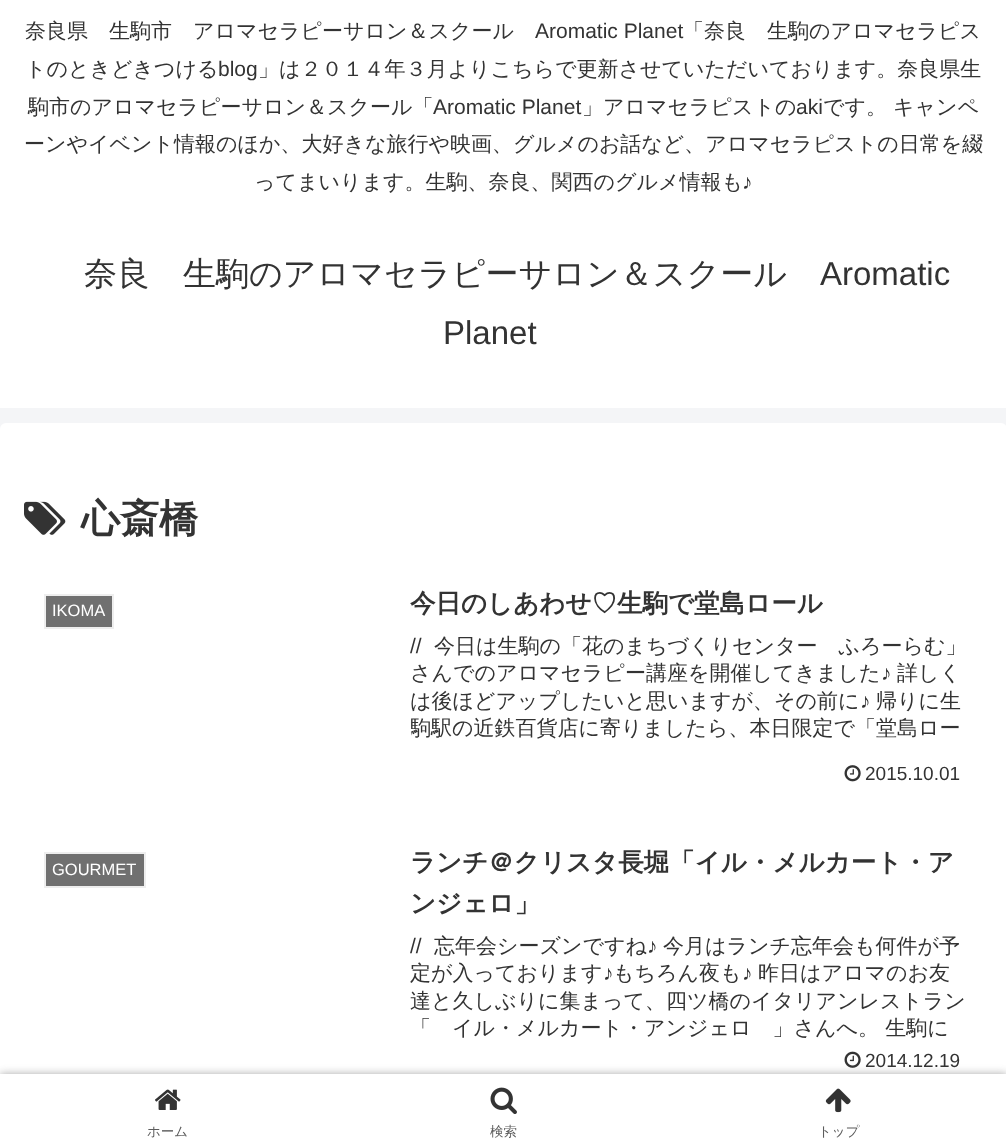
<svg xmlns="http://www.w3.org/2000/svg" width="1006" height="1148">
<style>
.a{font:500 21px WenQuanYi Zen Hei;fill:#333}
.b{font:21px Liberation Sans;fill:#333}
.c{font:500 33px WenQuanYi Zen Hei;fill:#333}
.d{font:33px Liberation Sans;fill:#333}
.e{font:bold 39px WenQuanYi Zen Hei;fill:#333}
.f{font:16.5px Liberation Sans;fill:#fff}
.g{font:bold 25.5px WenQuanYi Zen Hei;fill:#333}
.h{font:19px Liberation Sans;fill:#333}
.i{font:500 13.5px WenQuanYi Zen Hei;fill:#5c5c5c}
</style>
<defs>
<clipPath id="clip1"><path d="M411 632h557v109H411z"/></clipPath>
</defs>
<rect width="100%" height="100%" fill="#f4f5f7"/>
<path fill="#fff" d="M0 0h1006v408H0z"/>
<rect fill="#fff" y="423" width="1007" height="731" rx="6"/>
<image href="1.png" x="24" y="501" width="42" height="34"/>
<path fill="#707070" stroke="#eee" stroke-width="2" d="M45 595h68v33H45z"/>
<image href="2.png" x="844" y="765" width="17" height="17"/>
<path fill="#707070" stroke="#eee" stroke-width="2" d="M45 853h100v34H45z"/>
<image href="3.png" x="844" y="1051" width="17" height="17"/>
<path fill="#a9a9a9" filter="blur(4px)" d="M0 1074h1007v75H0z"/>
<path fill="#fff" d="M0 1074h1006v74H0z"/>
<image href="4.png" x="155" y="1089" width="26" height="21"/>
<image href="5.png" x="490" y="1087" width="27" height="27"/>
<image href="6.png" x="825" y="1088" width="26" height="25"/>
<text class="a" x="25" y="38">奈良県　生駒市　アロマセラピーサロン＆スクール</text>
<text class="b" x="535" y="38">Aromatic Planet</text>
<text class="a" x="683" y="38">「奈良　生駒のアロマセラピス</text>
<text class="a" x="25" y="76">トのときどきつける</text>
<text class="b" x="218" y="76">blog</text>
<text class="a" x="258" y="76">」は２０１４年３月よりこちらで更新させていただいております。奈良県生</text>
<text class="a" x="28" y="114">駒市のアロマセラピーサロン＆スクール「</text>
<text class="b" x="433" y="114">Aromatic Planet</text>
<text class="a" x="582" y="114">」アロマセラピストの</text>
<text class="b" x="796" y="114">aki</text>
<text class="a" x="823" y="114">です。</text>
<text class="a" x="893" y="114">キャンペ</text>
<text class="a" x="24" y="151">ーンやイベント情報のほか、大好きな旅行や映画、グルメのお話など、アロマセラピストの日常を綴</text>
<text class="a" x="254" y="189">ってまいります。生駒、奈良、関西のグルメ情報も</text>
<text class="b" x="742" y="189">♪</text>
<text class="c" x="84" y="285">奈良　生駒のアロマセラピーサロン＆スクール</text>
<text class="d" x="820" y="285">Aromatic</text>
<text class="d" x="443" y="344">Planet</text>
<text class="e" x="81" y="532">心斎橋</text>
<text class="f" x="52" y="616">IKOMA</text>
<text class="g" x="410" y="612">今日のしあわせ♡生駒で堂島ロール</text>
<text class="b" x="410" y="653"> //</text>
<text class="a" x="434" y="653">今日は生駒の「花のまちづくりセンター　ふろーらむ」</text>
<text class="a" x="410" y="680">さんでのアロマセラピー講座を開催してきました</text>
<text class="b" x="881" y="680">♪</text>
<text class="a" x="897" y="680">詳しく</text>
<text class="a" x="410" y="708">は後ほどアップしたいと思いますが、その前に</text>
<text class="b" x="860" y="708">♪</text>
<text class="a" x="876" y="708">帰りに生</text>
<g clip-path="url(#clip1)">
<text class="a" x="410" y="735">駒駅の近鉄百貨店に寄りましたら、本日限定で「堂島ロー</text>
</g>
<text class="h" x="865" y="780">2015.10.01</text>
<text class="f" x="52" y="875">GOURMET</text>
<text class="g" x="410" y="871">ランチ＠クリスタ長堀「イル・メルカート・ア</text>
<text class="g" x="410" y="912">ンジェロ」</text>
<text class="b" x="410" y="953"> //</text>
<text class="a" x="434" y="953">忘年会シーズンですね</text>
<text class="b" x="647" y="953">♪</text>
<text class="a" x="663" y="953">今月はランチ忘年会も何件が予</text>
<text class="a" x="410" y="980">定が入っております</text>
<text class="b" x="603" y="980">♪</text>
<text class="a" x="613" y="980">もちろん夜も</text>
<text class="b" x="742" y="980">♪</text>
<text class="a" x="758" y="980">昨日はアロマのお友</text>
<text class="a" x="410" y="1008">達と久しぶりに集まって、四ツ橋のイタリアンレストラン</text>
<text class="a" x="410" y="1035">「　イル・メルカート・アンジェロ　」さんへ。 生駒に</text>
<text class="h" x="865" y="1067">2014.12.19</text>
<text class="i" x="147" y="1136">ホーム</text>
<text class="i" x="490" y="1136">検索</text>
<text class="i" x="818" y="1136">トップ</text>
</svg>
